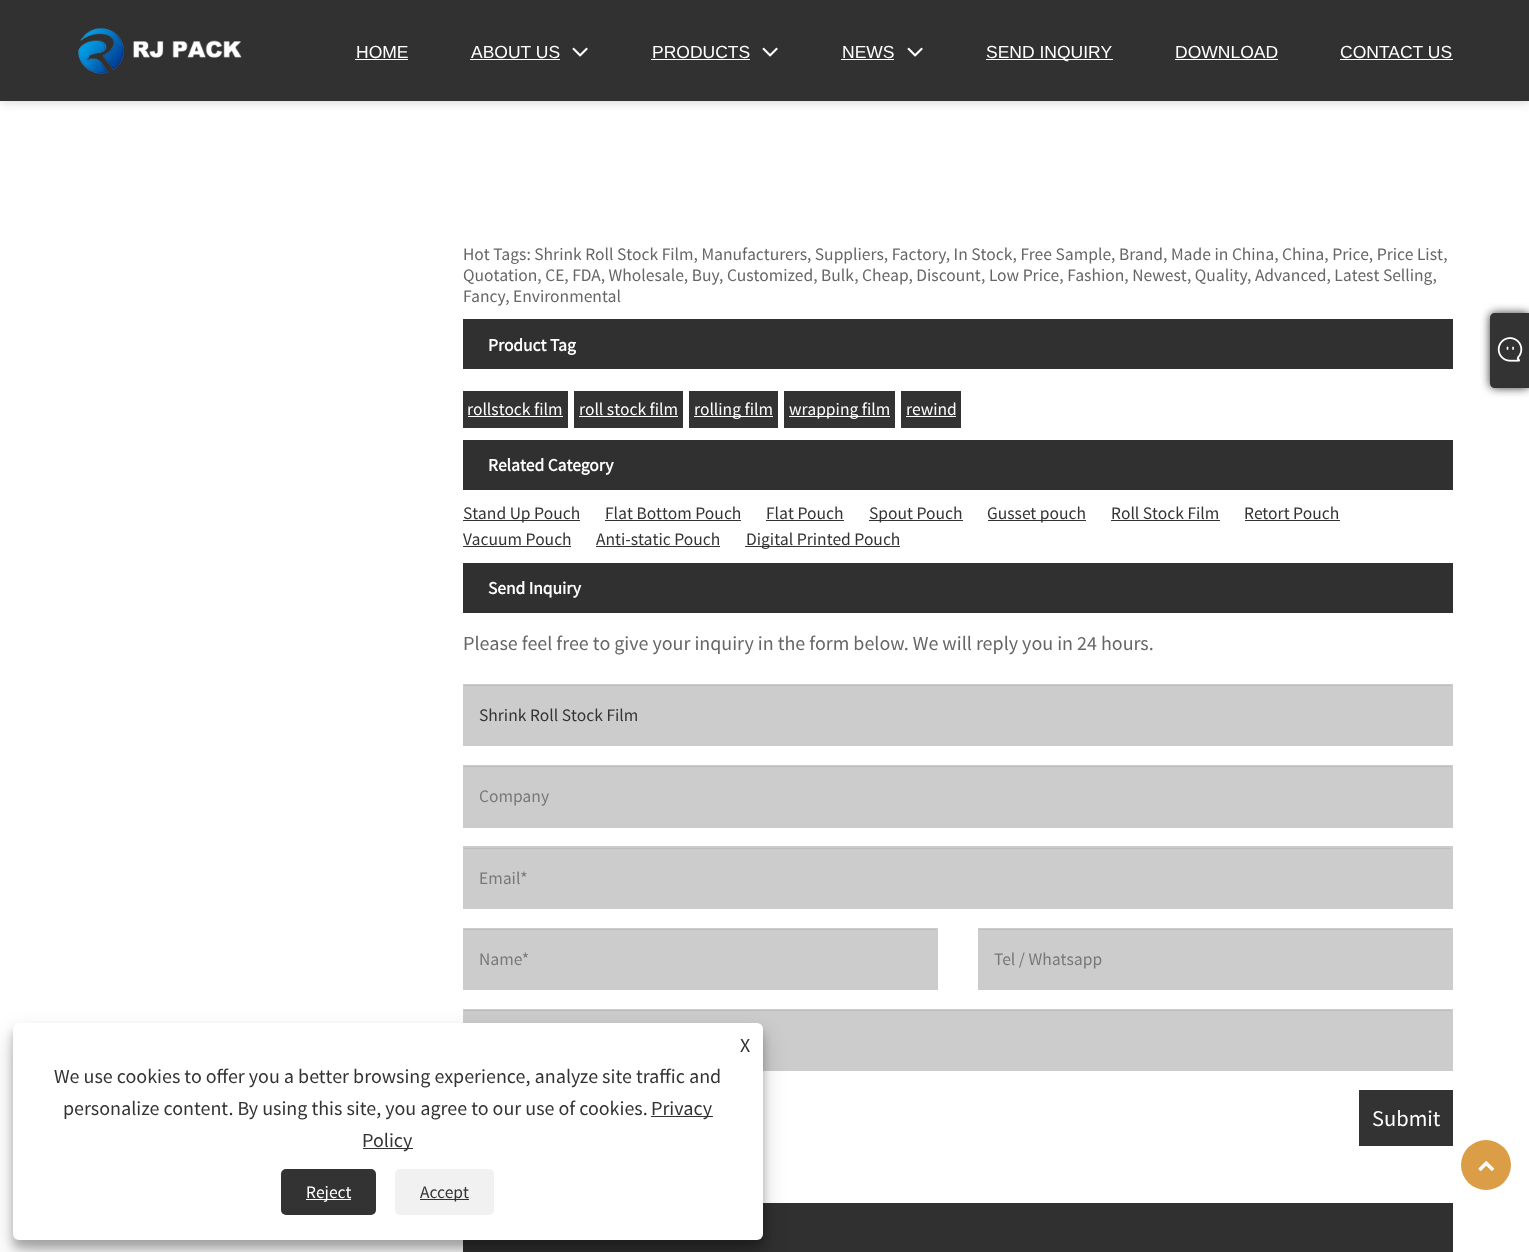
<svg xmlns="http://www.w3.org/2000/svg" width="1529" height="1252">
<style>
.a{font:17.5px Liberation Sans;fill:#fff}
.b{font:17.5px Source Sans Pro;fill:#666}
.c{font:bold 17.5px Source Sans Pro;fill:#fff}
.d{font:17.5px Source Sans Pro;fill:#fff}
.e{font:17.5px Source Sans Pro;fill:#333}
.f{font:20px Source Sans Pro;fill:#666}
.g{font:17.5px Source Sans Pro;fill:#787878}
.h{font:22.5px Source Sans Pro;fill:#fff}
.i{font:20px Source Sans Pro;fill:#333}
</style>
<rect width="100%" height="100%" fill="#fff"/>
<path fill="#00000033" filter="blur(6px)" d="M0 0h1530v101H0z"/>
<path fill="#313131" d="M0 0h1529v101H0z"/>
<image href="1.png" x="78" y="28" width="164" height="46"/>
<path fill="#fff" d="M355 59h53v1H355z"/>
<path fill="#fff" d="M470 59h90v1H470z"/>
<image href="2.png" x="572" y="47" width="16" height="10"/>
<path fill="#fff" d="M651 59h99v1H651z"/>
<image href="2.png" x="762" y="47" width="16" height="10"/>
<path fill="#fff" d="M841 59h53v1H841z"/>
<image href="2.png" x="907" y="47" width="16" height="10"/>
<path fill="#fff" d="M986 59h127v1H986z"/>
<path fill="#fff" d="M1175 59h103v1H1175z"/>
<path fill="#fff" d="M1340 59h113v1H1340z"/>
<path fill="#303030" d="M463 319h990v50H463z"/>
<path fill="#333" d="M463 391h105v37H463z"/>
<path fill="#fff" d="M468 416h95v1H468z"/>
<path fill="#333" d="M574 391h109v37H574z"/>
<path fill="#fff" d="M579 416h99v1H579z"/>
<path fill="#333" d="M689 391h89v37H689z"/>
<path fill="#fff" d="M694 416h79v1H694z"/>
<path fill="#333" d="M784 391h111v37H784z"/>
<path fill="#fff" d="M789 416h101v1H789z"/>
<path fill="#333" d="M901 391h60v37H901z"/>
<path fill="#fff" d="M906 416h50v1H906z"/>
<path fill="#303030" d="M463 440h990v50H463z"/>
<path fill="#333" d="M463 520h117v1H463z"/>
<path fill="#333" d="M605 520h136v1H605z"/>
<path fill="#333" d="M766 520h78v1H766z"/>
<path fill="#333" d="M869 520h94v1H869z"/>
<path fill="#333" d="M988 520h98v1H988z"/>
<path fill="#333" d="M1111 520h109v1H1111z"/>
<path fill="#333" d="M1245 520h95v1H1245z"/>
<path fill="#333" d="M463 546h108v1H463z"/>
<path fill="#333" d="M596 546h124v1H596z"/>
<path fill="#333" d="M745 546h155v1H745z"/>
<path fill="#303030" d="M463 563h990v50H463z"/>
<path fill="#ccc" d="M463 684h990v62H463z"/>
<path fill="#bdbdbd" d="M464 685h987v1H464z"/>
<path fill="#ccc" d="M463 765h990v63H463z"/>
<path fill="#bdbdbd" d="M464 766h987v1H464z"/>
<path fill="#ccc" d="M463 846h990v63H463z"/>
<path fill="#bdbdbd" d="M464 848h987v1H464z"/>
<path fill="#ccc" d="M463 928h475v62H463z"/>
<path fill="#bdbdbd" d="M464 929h472v1H464z"/>
<path fill="#ccc" d="M978 928h475v62H978z"/>
<path fill="#bdbdbd" d="M979 929h472v1H979z"/>
<path fill="#ccc" d="M463 1009h990v62H463z"/>
<path fill="#bdbdbd" d="M464 1010h987v1H464z"/>
<path fill="#333" d="M1359 1090h94v56H1359z"/>
<path fill="#303030" d="M463 1203h990v49H463z"/>
<rect fill="#333" filter="blur(5px)" x="1490" y="313" width="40" height="75" rx="5"/>
<path fill="#333" d="M1495 313h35v75h-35c-3 0-5-2-5-5v-65c0-3 2-5 5-5z"/>
<image href="3.png" x="1497" y="337" width="26" height="25"/>
<rect fill="#0000003b" filter="blur(4px)" x="13" y="1030" width="750" height="218" rx="6"/>
<rect fill="#00000030" filter="blur(12.5px)" x="13" y="1035" width="750" height="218" rx="6"/>
<rect fill="#fff" x="13" y="1023" width="750" height="217" rx="6"/>
<path fill="#333" d="M651 1116h62v1H651z"/>
<path fill="#333" d="M363 1148h50v1H363z"/>
<rect fill="#333" x="281" y="1169" width="95" height="46" rx="5"/>
<path fill="#fff" d="M306 1199h45v1H306z"/>
<rect fill="#f1f1f1" x="395" y="1169" width="99" height="46" rx="5"/>
<path fill="#333" d="M420 1199h49v1H420z"/>
<circle fill="#db9d46" cx="1486" cy="1165" r="25"/>
<image href="4.png" x="1478" y="1161" width="17" height="10"/>
<text class="a" x="356" y="58">HOME</text>
<text class="a" x="471" y="58">ABOUT US</text>
<text class="a" x="652" y="58">PRODUCTS</text>
<text class="a" x="842" y="58">NEWS</text>
<text class="a" x="986" y="58">SEND INQUIRY</text>
<text class="a" x="1175" y="58">DOWNLOAD</text>
<text class="a" x="1340" y="58">CONTACT US</text>
<text class="b" x="463" y="260">Hot Tags: Shrink Roll Stock Film, Manufacturers, Suppliers, Factory, In Stock, Free Sample, Brand, Made in China, China, Price, Price List,</text>
<text class="b" x="463" y="281">Quotation, CE, FDA, Wholesale, Buy, Customized, Bulk, Cheap, Discount, Low Price, Fashion, Newest, Quality, Advanced, Latest Selling,</text>
<text class="b" x="463" y="302">Fancy, Environmental</text>
<text class="c" x="488" y="351">Product Tag</text>
<text class="d" x="467" y="415">rollstock film</text>
<text class="d" x="579" y="415">roll stock film</text>
<text class="d" x="694" y="415">rolling film</text>
<text class="d" x="789" y="415">wrapping film</text>
<text class="d" x="906" y="415">rewind</text>
<text class="c" x="488" y="471">Related Category</text>
<text class="e" x="463" y="519">Stand Up Pouch</text>
<text class="e" x="605" y="519">Flat Bottom Pouch</text>
<text class="e" x="766" y="519">Flat Pouch</text>
<text class="e" x="869" y="519">Spout Pouch</text>
<text class="e" x="987" y="519">Gusset pouch</text>
<text class="e" x="1111" y="519">Roll Stock Film</text>
<text class="e" x="1244" y="519">Retort Pouch</text>
<text class="e" x="463" y="545">Vacuum Pouch</text>
<text class="e" x="596" y="545">Anti-static Pouch</text>
<text class="e" x="746" y="545">Digital Printed Pouch</text>
<text class="c" x="488" y="594">Send Inquiry</text>
<text class="f" x="463" y="650">Please feel free to give your inquiry in the form below. We will reply you in 24 hours.</text>
<text class="e" x="479" y="721">Shrink Roll Stock Film</text>
<text class="g" x="479" y="802">Company</text>
<text class="g" x="479" y="884">Email*</text>
<text class="g" x="479" y="965">Name*</text>
<text class="g" x="994" y="965">Tel / Whatsapp</text>
<text class="h" x="1372" y="1126">Submit</text>
<text class="i" x="740" y="1052">X</text>
<text class="i" x="54" y="1083">We use cookies to offer you a better browsing experience, analyze site traffic and</text>
<text class="i" x="63" y="1115">personalize content. By using this site, you agree to our use of cookies.</text>
<text class="i" x="651" y="1115">Privacy</text>
<text class="i" x="362" y="1147">Policy</text>
<text class="d" x="306" y="1198">Reject</text>
<text class="e" x="420" y="1198">Accept</text>
</svg>
